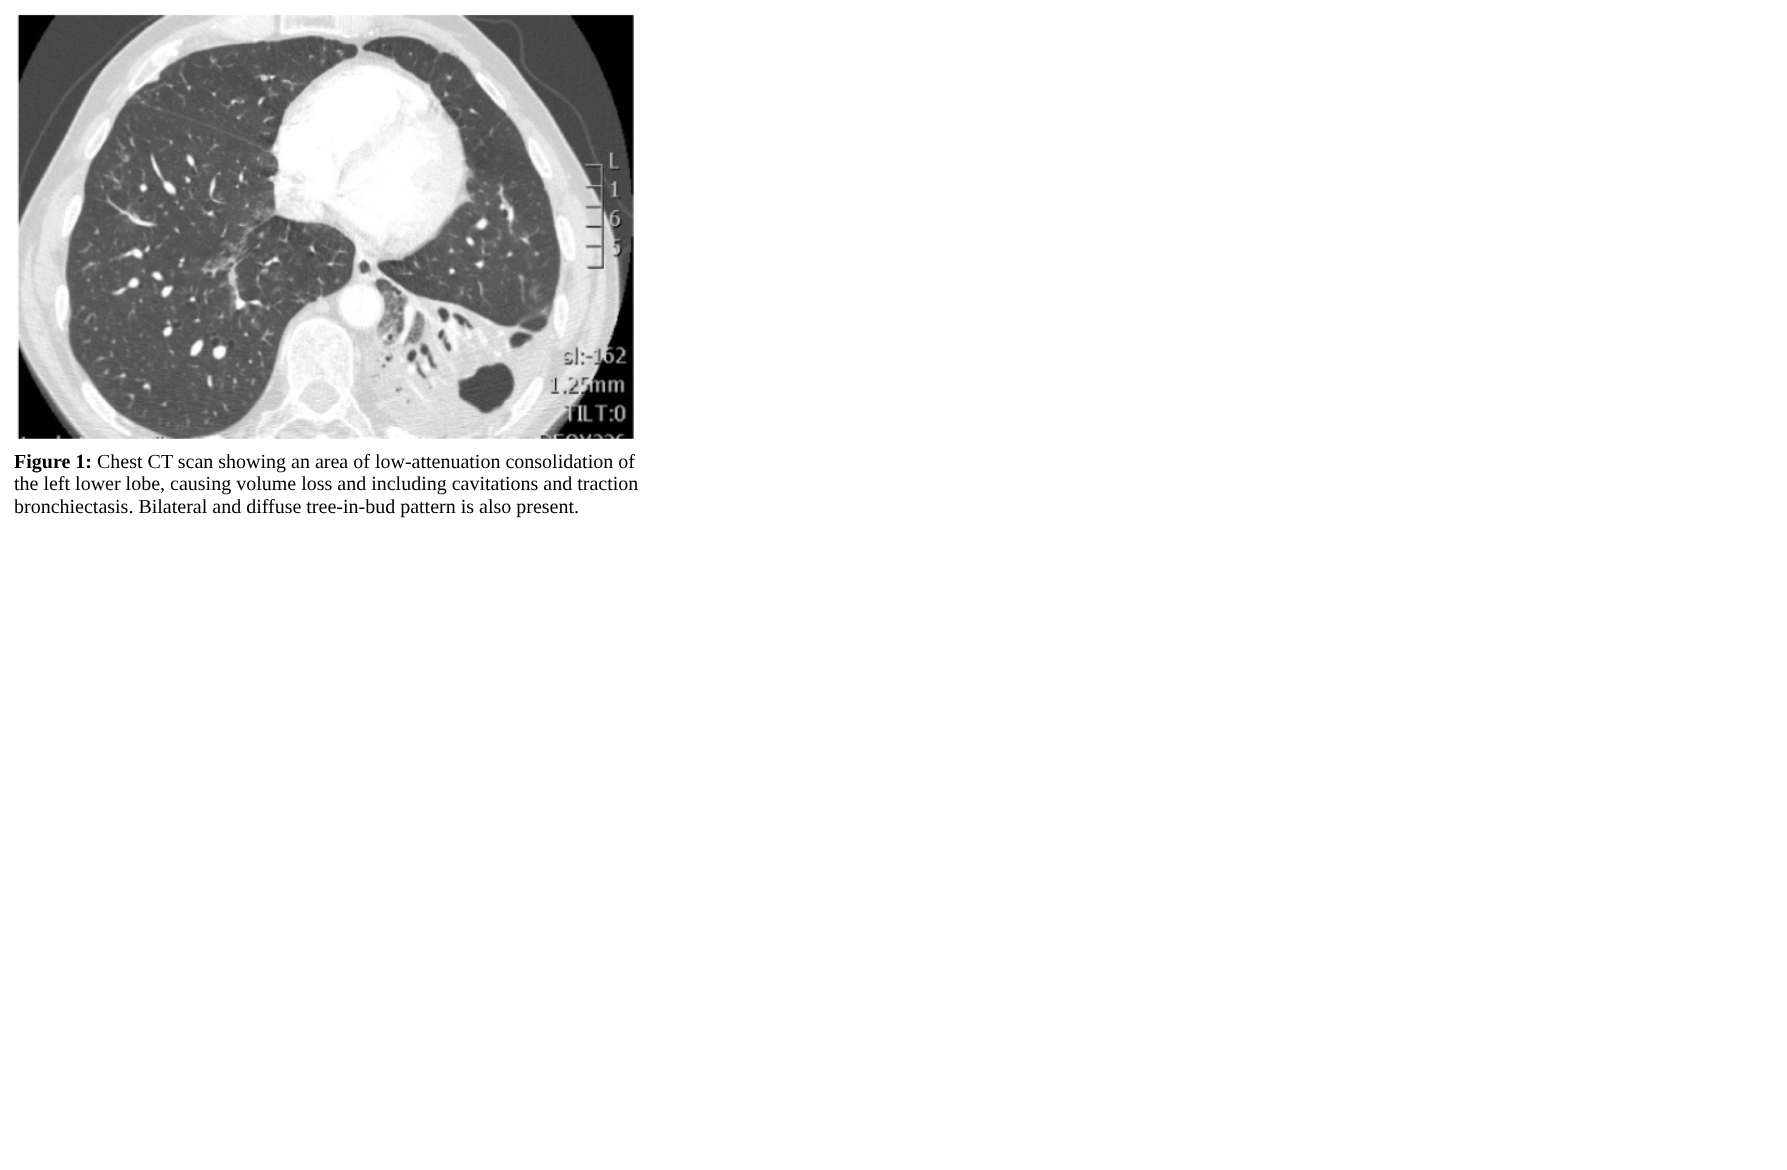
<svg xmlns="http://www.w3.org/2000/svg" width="1787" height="1170">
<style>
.a{font:bold 20px Liberation Serif;fill:#000}
.b{font:20px Liberation Serif;fill:#000}
</style>
<rect width="100%" height="100%" fill="#fff"/>
<image href="1.png" x="17" y="14" width="617" height="425"/>
<text class="a" x="14" y="468">Figure 1:</text>
<text class="b" x="97" y="468">Chest CT scan showing an area of low-attenuation consolidation of</text>
<text class="b" x="14" y="490">the left lower lobe, causing volume loss and including cavitations and traction</text>
<text class="b" x="14" y="513">bronchiectasis. Bilateral and diffuse tree-in-bud pattern is also present.</text>
</svg>
